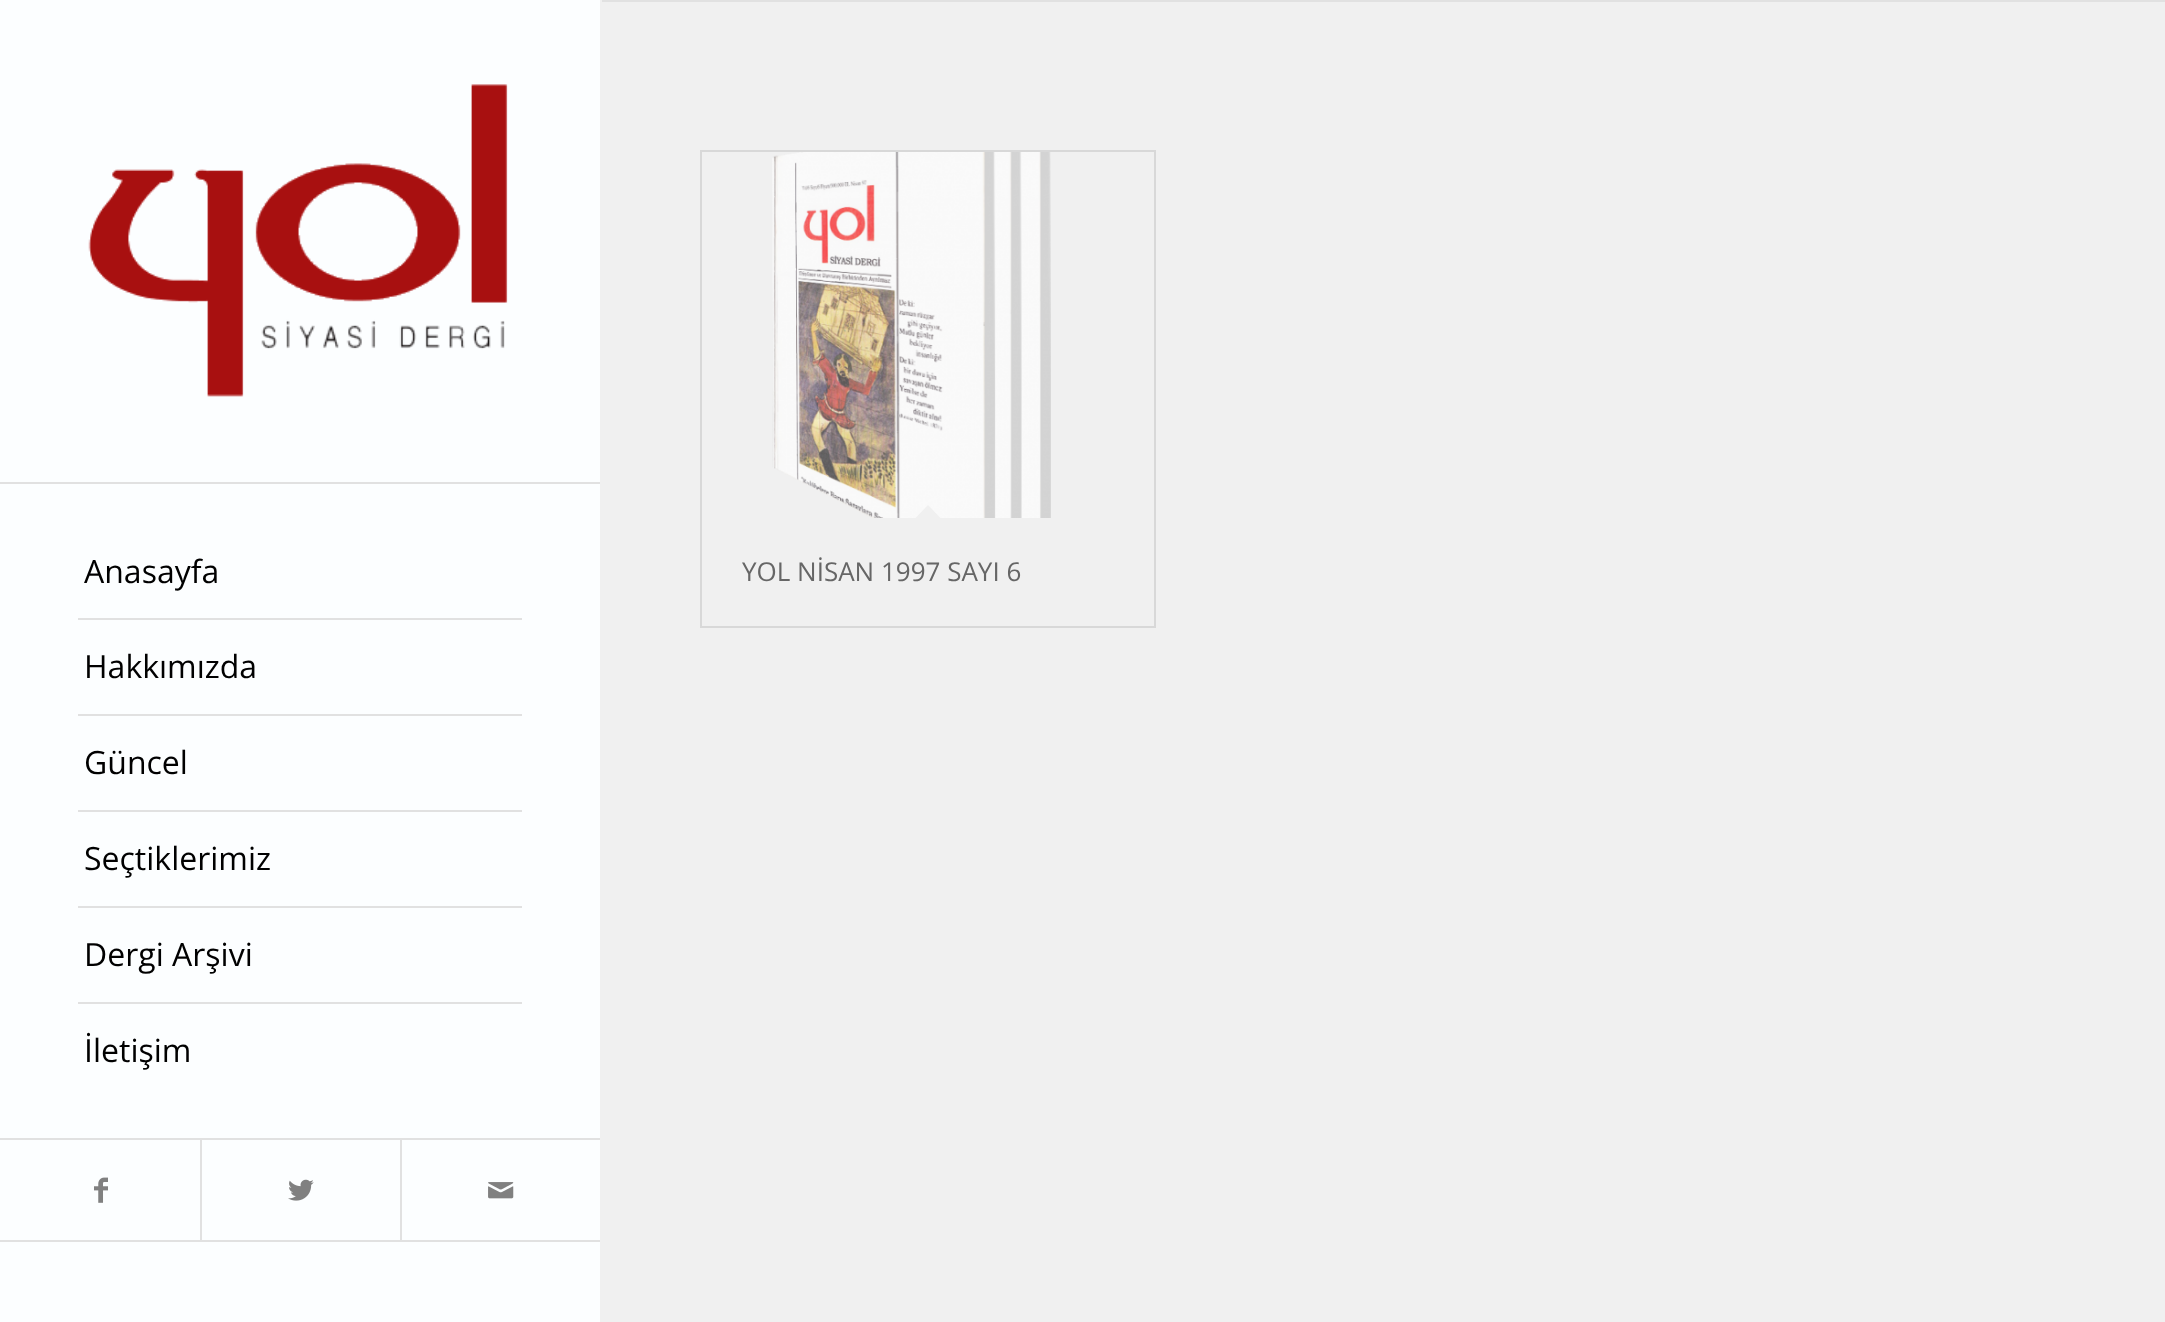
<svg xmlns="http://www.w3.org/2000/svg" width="2165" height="1322">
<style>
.a{font:32px Open Sans;fill:#000}
.b{font:26px Open Sans;fill:#666}
</style>
<rect width="100%" height="100%" fill="#f0f0f0"/>
<path fill="#fcfeff" d="M0 0h600v1322H0z"/>
<path fill="#e1e1e1" d="M0 1240h600v2H0z"/>
<path fill="#e1e1e1" d="M0 482h600v2H0z"/>
<image href="1.png" x="88" y="84" width="420" height="313"/>
<path fill="#e1e1e1" d="M78 618h444v2H78z"/>
<path fill="#e1e1e1" d="M78 714h444v2H78z"/>
<path fill="#e1e1e1" d="M78 810h444v2H78z"/>
<path fill="#e1e1e1" d="M78 906h444v2H78z"/>
<path fill="#e1e1e1" d="M78 1002h444v2H78z"/>
<path fill="#e1e1e1" d="M0 1138h600v2H0z"/>
<image href="2.png" x="94" y="1177" width="14" height="26"/>
<path fill="#e1e1e1" d="M200 1140h2v100H200z"/>
<image href="3.png" x="288" y="1179" width="26" height="22"/>
<path fill="#e1e1e1" d="M400 1140h2v100H400z"/>
<image href="4.png" x="488" y="1182" width="26" height="17"/>
<path fill="#e1e1e1" d="M602 0h1563v2H602z"/>
<path fill="none" stroke="#d8d8d8" stroke-width="2" d="M701 151h454v476H701z"/>
<image href="5.png" x="772" y="152" width="279" height="366"/>
<path fill="#f0f0f0" d="M928 505l14 14.5l-14 14l-14-14z"/>
<text class="a" x="84" y="583">Anasayfa</text>
<text class="a" x="84" y="678">Hakkımızda</text>
<text class="a" x="84" y="774">Güncel</text>
<text class="a" x="84" y="870">Seçtiklerimiz</text>
<text class="a" x="84" y="966">Dergi Arşivi</text>
<text class="a" x="84" y="1062">İletişim</text>
<text class="b" x="742" y="581">YOL NİSAN 1997 SAYI 6</text>
</svg>
